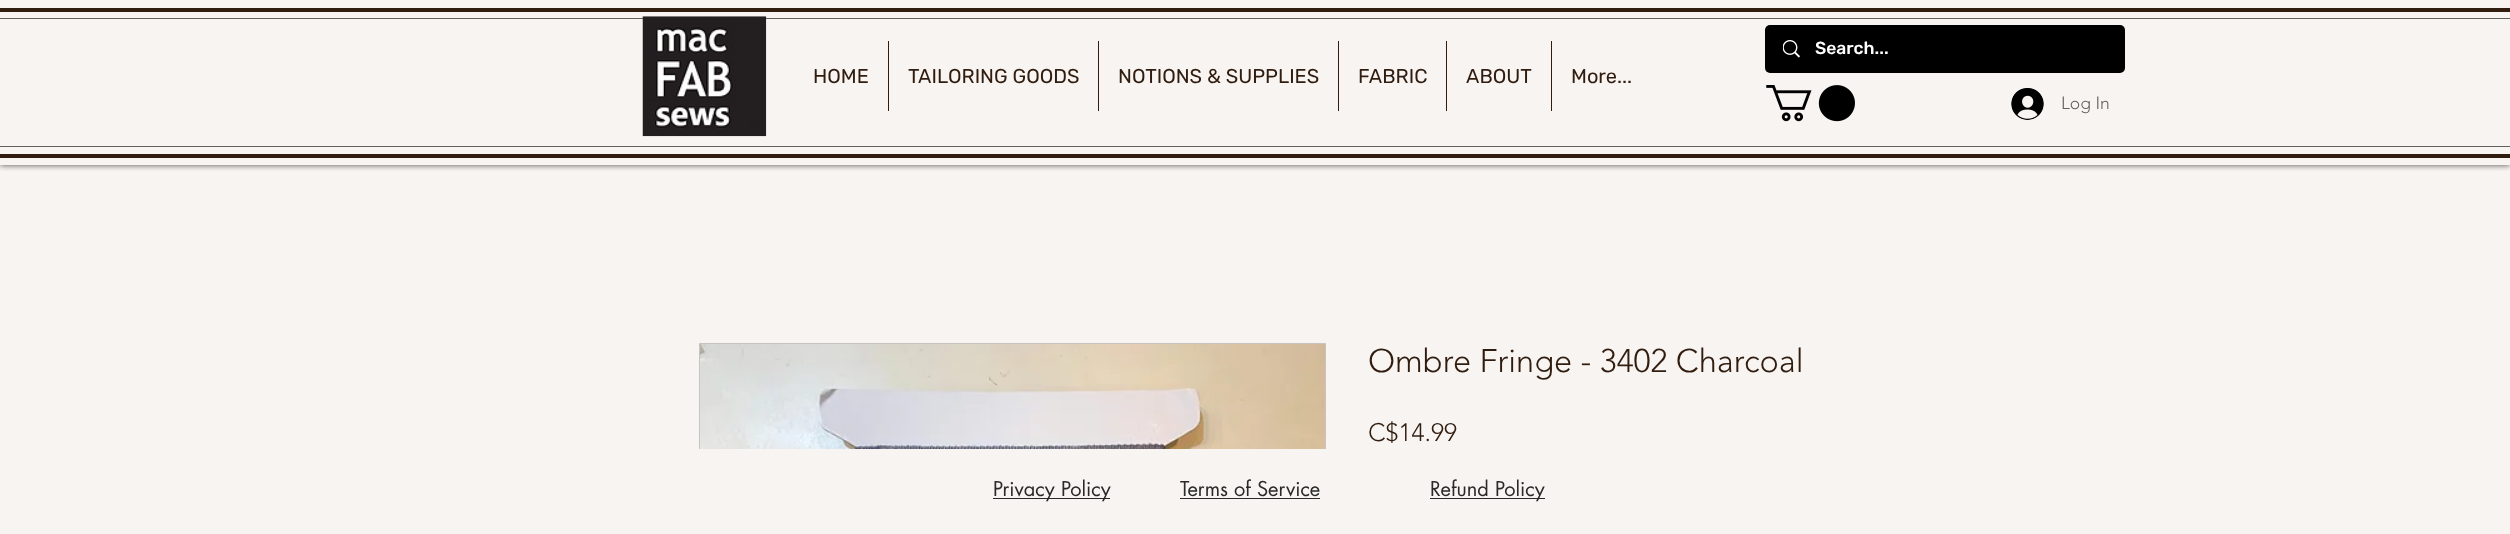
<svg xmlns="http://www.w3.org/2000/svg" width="2510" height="534">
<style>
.a{font:500 17.5px Rubik;fill:#fff}
.b{font:20px Rubik;fill:#301d10}
.c{font:300 17.5px 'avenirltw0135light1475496';fill:#636260}
.d{font:300 32.5px 'avenirltw0135light1475496';fill:#301d10}
.e{font:300 25px 'avenirltw0135light1475496';fill:#301d10}
.f{font:20px futura;fill:#292929}
</style>
<defs>
<clipPath id="clip1"><path d="M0 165h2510v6H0z"/></clipPath>
</defs>
<rect width="100%" height="100%" fill="#f8f4f1"/>
<g clip-path="url(#clip1)">
<path fill="#000000b3" filter="blur(3px)" d="M0 0h2510v165H0z"/>
</g>
<path fill="#301d10" d="M0 8h2510v4H0z"/>
<path fill="#301d10" d="M0 154h2510v4H0z"/>
<path fill="#636260" d="M0 18h2510v1H0z"/>
<path fill="#636260" d="M0 146h2510v1H0z"/>
<image href="1.png" x="642" y="16" width="125" height="121"/>
<rect fill="#000" x="1765" y="25" width="360" height="48" rx="5"/>
<image href="2.png" x="1783" y="40" width="17" height="18"/>
<path fill="#301d10" d="M888 41h1v70H888z"/>
<path fill="#301d10" d="M1098 41h1v70H1098z"/>
<path fill="#301d10" d="M1338 41h1v70H1338z"/>
<path fill="#301d10" d="M1446 41h1v70H1446z"/>
<path fill="#301d10" d="M1551 41h1v70H1551z"/>
<image href="3.png" x="1766" y="85" width="89" height="37"/>
<image href="4.png" x="2011" y="88" width="33" height="32"/>
<path fill="none" stroke="#c6c3c1" d="M699.5 343.5h626v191H699.5z"/>
<image href="5.png" x="700" y="344" width="625" height="105"/>
<path fill="#f8f4f1" d="M699 449h627v85H699z"/>
<path fill="#292929" d="M993 498h117v1H993z"/>
<path fill="#292929" d="M1180 498h140v1H1180z"/>
<path fill="#292929" d="M1430 498h115v1H1430z"/>
<text class="a" x="1815" y="54">Search...</text>
<text class="b" x="813" y="83">HOME</text>
<text class="b" x="908" y="83">TAILORING GOODS</text>
<text class="b" x="1118" y="83">NOTIONS &amp; SUPPLIES</text>
<text class="b" x="1358" y="83">FABRIC</text>
<text class="b" x="1466" y="83">ABOUT</text>
<text class="b" x="1571" y="83">More...</text>
<text class="c" x="2061" y="109">Log In</text>
<text class="d" x="1368" y="372">Ombre Fringe - 3402 Charcoal</text>
<text class="e" x="1368" y="441">C$14.99</text>
<text class="f" x="993" y="496">Privacy Policy</text>
<text class="f" x="1180" y="496">Terms of Service</text>
<text class="f" x="1430" y="496">Refund Policy</text>
</svg>
